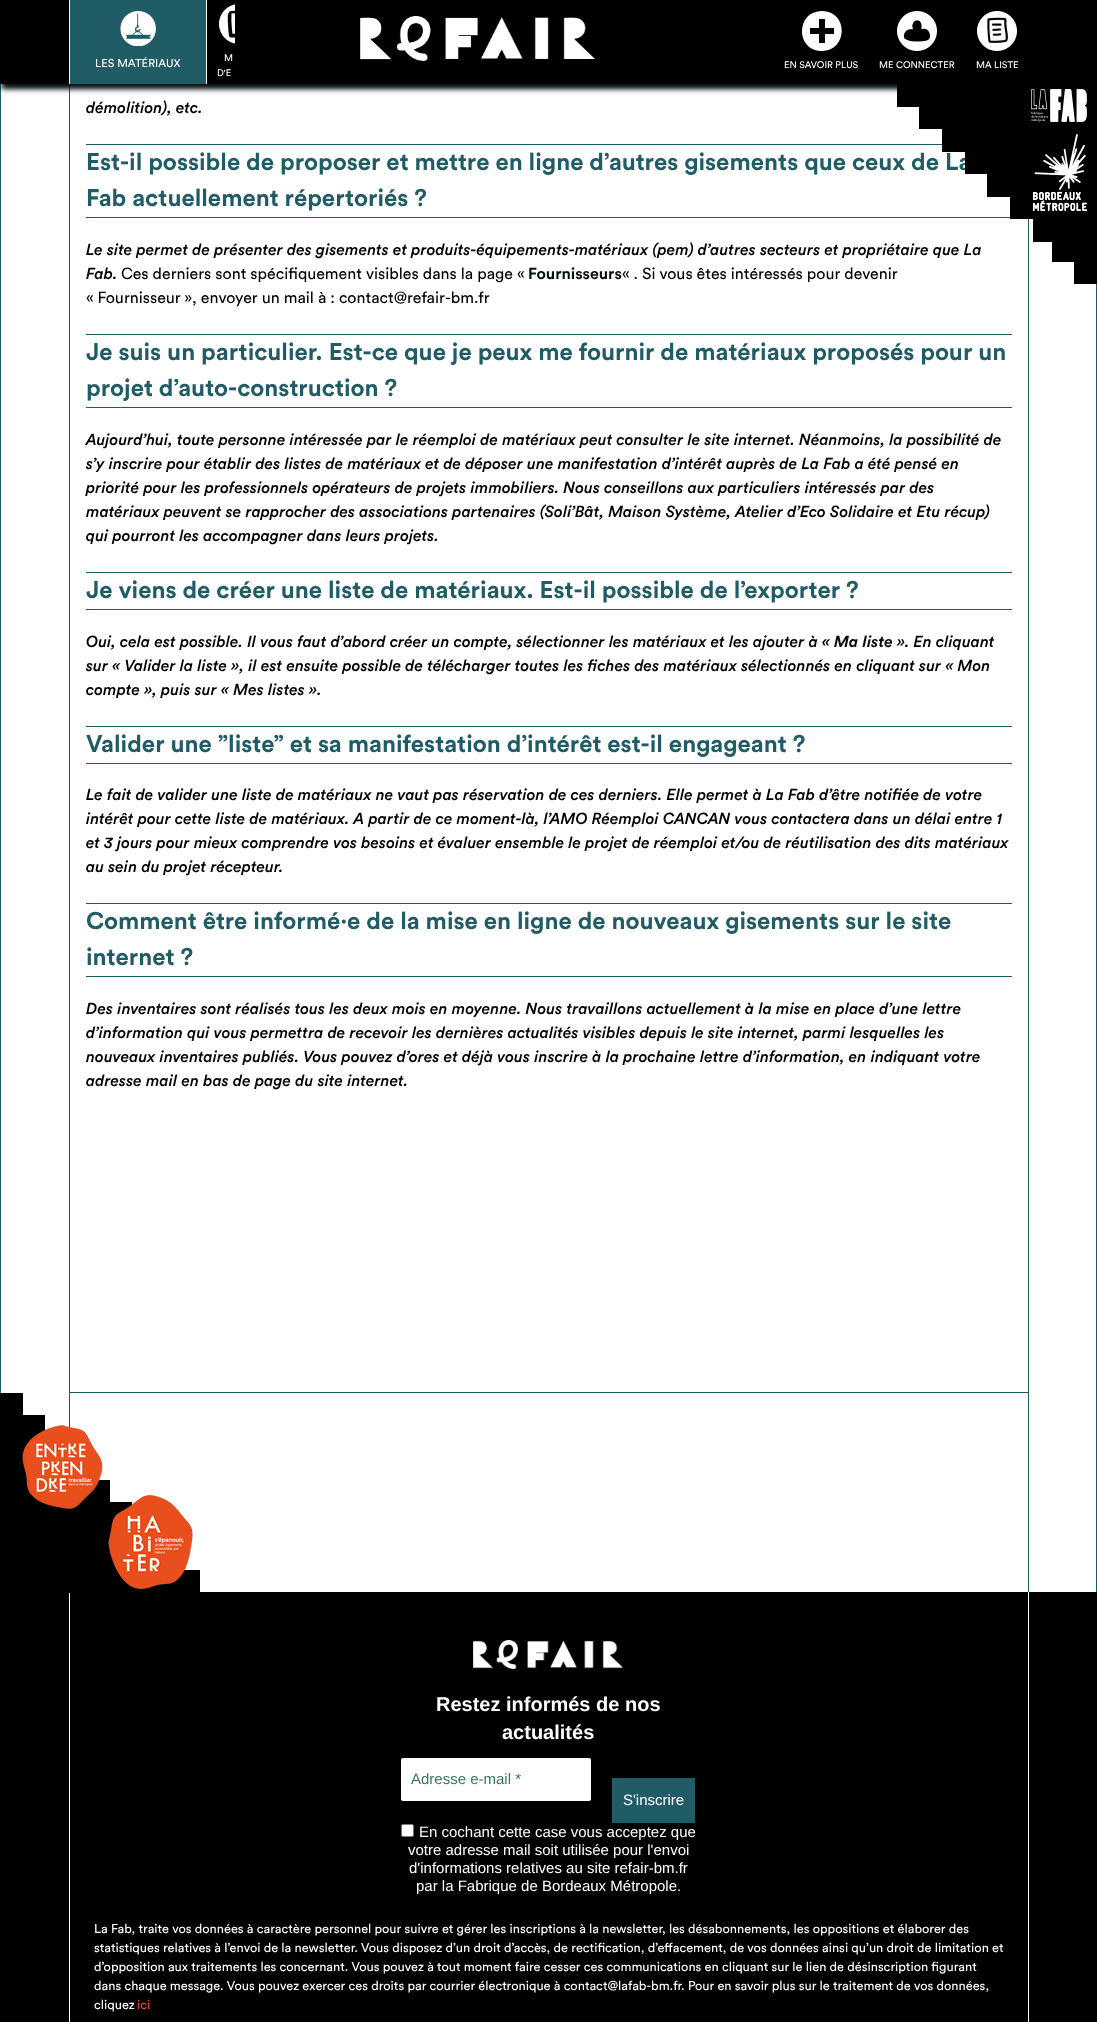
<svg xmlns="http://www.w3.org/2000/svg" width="1097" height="2022">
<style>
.a{font:11.25px Circular;fill:#fff}
.b{font:9.5px Circular;fill:#fff}
.c{font:italic 500 16px Circular;fill:#000}
.d{font:bold 24px Circular;fill:#205c66}
.e{font:16px Circular;fill:#000}
.f{font:bold 16px Circular;fill:#050f11}
.g{font:italic bold 16px Circular;fill:#050f11}
.h{font:bold 20px Liberation Sans;fill:#fff}
.i{font:15px Liberation Sans;fill:#367857}
.j{font:15px Liberation Sans;fill:#fff}
.k{font:12.8px Circular;fill:#fff}
.l{font:12.8px Circular;fill:#e94c2a}
</style>
<rect width="100%" height="100%" fill="#fff"/>
<path fill="#205c66" d="M0 84h1v1309H0z"/>
<path fill="#205c66" d="M69 84h1v1308H69z"/>
<path fill="#00000040" filter="blur(3.5px)" d="M0 3h1097v84H0z"/>
<path fill="#050f11" filter="blur(2.5px)" d="M2 53h1095v36H2z"/>
<path fill="#000" d="M0 0h1097v84H0z"/>
<image href="1.png" x="360" y="16" width="236" height="45"/>
<path fill="#fff" d="M206 0h1v84H206z"/>
<path fill="#fff" d="M69 0h1v84H69z"/>
<path fill="#205c66" d="M70 0h136v84H70z"/>
<image href="2.png" x="120" y="11" width="36" height="35"/>
<image href="3.png" x="219" y="4" width="16" height="40"/>
<path fill="#fff" d="M822 11c-26 0-27 39-1 40c27 1 28-40 1-40zm12 23h-9v9h-6v-9h-9v-6h9v-9h6v9h9z"/>
<image href="4.png" x="897" y="11" width="40" height="40"/>
<image href="5.png" x="977" y="11" width="40" height="40"/>
<path fill="#205c66" d="M1096 284h1v1308H1096z"/>
<path fill="#205c66" d="M1028 219h1v1173H1028z"/>
<path fill="#205c66" d="M86 144h856v1H86z"/>
<path fill="#205c66" d="M86 217h926v1H86z"/>
<path fill="#205c66" d="M86 334h926v1H86z"/>
<path fill="#205c66" d="M86 407h926v1H86z"/>
<path fill="#205c66" d="M86 572h926v1H86z"/>
<path fill="#205c66" d="M86 609h926v1H86z"/>
<path fill="#205c66" d="M86 726h926v1H86z"/>
<path fill="#205c66" d="M86 763h926v1H86z"/>
<path fill="#205c66" d="M86 903h926v1H86z"/>
<path fill="#205c66" d="M86 976h926v1H86z"/>
<path fill="#205c66" d="M69 1392h960v1H69z"/>
<path fill="#205c66" d="M1028 1392h1v200H1028z"/>
<path fill="#205c66" d="M69 1392h1v36H69z"/>
<path fill="#000" d="M0 1592h1097v430H0z"/>
<path fill="#fff" d="M69 1592h1v430H69z"/>
<path fill="#000" d="M0 1593h200v-23h-22v-22h-23v-23h-23v-23h-22v-22h-23v-23h-23v-22h-19v-20h-22v-22h-23z"/>
<image href="8.png" x="22" y="1425" width="81" height="84"/>
<image href="9.png" x="108" y="1495" width="85" height="94"/>
<path fill="#fff" d="M1028 1592h1v430H1028z"/>
<image href="10.png" x="473" y="1640" width="150" height="29"/>
<rect fill="#fff" x="401" y="1758" width="190" height="43" rx="2"/>
<path fill="#205c66" d="M612 1778h83v45H612z"/>
<rect fill="#fff" stroke="#767676" x="401.5" y="1824.5" width="12" height="12" rx="1.5"/>
<text class="a" x="95" y="67">LES MATÉRIAUX</text>
<text class="b" x="224" y="61">M</text>
<text class="b" x="217" y="76">D'E</text>
<text class="b" x="784" y="68">EN SAVOIR PLUS</text>
<text class="b" x="879" y="68">ME CONNECTER</text>
<text class="b" x="976" y="68">MA LISTE</text>
<text class="c" x="86" y="113">démolition), etc.</text>
<text class="d" x="86" y="170">Est-il possible de proposer et mettre en ligne d’autres gisements que ceux de La</text>
<path fill="#000" d="M1097 84h-200v23h22v22h23v23h23v22h22v23h23v22h23v23h19v20h22v22h23z"/>
<image href="7.png" x="1033" y="134" width="54" height="77"/>
<image href="6.png" x="1031" y="89" width="56" height="33"/>
<text class="d" x="86" y="206">Fab actuellement répertoriés ?</text>
<text class="c" x="86" y="255">Le site permet de présenter des gisements et produits-équipements-matériaux (pem) d’autres secteurs et propriétaire que La</text>
<text class="c" x="86" y="279">Fab.</text>
<text class="e" x="121" y="279">Ces derniers sont spécifiquement visibles dans la page «</text>
<text class="f" x="528" y="279">Fournisseurs</text>
<text class="e" x="622" y="279">« . Si vous êtes intéressés pour devenir</text>
<text class="e" x="86" y="303">« Fournisseur », envoyer un mail à : contact@refair-bm.fr</text>
<text class="d" x="86" y="360">Je suis un particulier. Est-ce que je peux me fournir de matériaux proposés pour un</text>
<text class="d" x="86" y="396">projet d’auto-construction ?</text>
<text class="c" x="86" y="445">Aujourd’hui, toute personne intéressée par le réemploi de matériaux peut consulter le site internet. Néanmoins, la possibilité de</text>
<text class="c" x="86" y="469">s’y inscrire pour établir des listes de matériaux et de déposer une manifestation d’intérêt auprès de La Fab a été pensé en</text>
<text class="c" x="86" y="493">priorité pour les professionnels opérateurs de projets immobiliers. Nous conseillons aux particuliers intéressés par des</text>
<text class="c" x="86" y="517">matériaux peuvent se rapprocher des associations partenaires (Soli’Bât, Maison Système, Atelier d’Eco Solidaire et Etu récup)</text>
<text class="c" x="86" y="541">qui pourront les accompagner dans leurs projets.</text>
<text class="d" x="86" y="598">Je viens de créer une liste de matériaux. Est-il possible de l’exporter ?</text>
<text class="c" x="86" y="647">Oui, cela est possible. Il vous faut d’abord créer un compte, sélectionner les matériaux et les ajouter à «</text>
<text class="g" x="834" y="647">Ma liste</text>
<text class="c" x="897" y="647">». En cliquant</text>
<text class="c" x="86" y="671">sur « Valider la liste », il est ensuite possible de télécharger toutes les fiches des matériaux sélectionnés en cliquant sur « Mon</text>
<text class="c" x="86" y="695">compte », puis sur « Mes listes ».</text>
<text class="d" x="86" y="752">Valider une ”liste” et sa manifestation d’intérêt est-il engageant ?</text>
<text class="c" x="86" y="800">Le fait de valider une liste de matériaux ne vaut pas réservation de ces derniers. Elle permet à La Fab d’être notifiée de votre</text>
<text class="c" x="86" y="824">intérêt pour cette liste de matériaux. A partir de ce moment-là, l’AMO Réemploi CANCAN vous contactera dans un délai entre 1</text>
<text class="c" x="86" y="848">et 3 jours pour mieux comprendre vos besoins et évaluer ensemble le projet de réemploi et/ou de réutilisation des dits matériaux</text>
<text class="c" x="86" y="872">au sein du projet récepteur.</text>
<text class="d" x="86" y="929">Comment être informé·e de la mise en ligne de nouveaux gisements sur le site</text>
<text class="d" x="86" y="965">internet ?</text>
<text class="c" x="86" y="1014">Des inventaires sont réalisés tous les deux mois en moyenne. Nous travaillons actuellement à la mise en place d’une lettre</text>
<text class="c" x="86" y="1038">d’information qui vous permettra de recevoir les dernières actualités visibles depuis le site internet, parmi lesquelles les</text>
<text class="c" x="86" y="1062">nouveaux inventaires publiés. Vous pouvez d’ores et déjà vous inscrire à la prochaine lettre d’information, en indiquant votre</text>
<text class="c" x="86" y="1086">adresse mail en bas de page du site internet.</text>
<text class="h" x="436" y="1711">Restez informés de nos</text>
<text class="h" x="502" y="1739">actualités</text>
<text class="i" x="411" y="1784">Adresse e-mail *</text>
<text class="j" x="623" y="1805">S'inscrire</text>
<text class="j" x="419" y="1837">En cochant cette case vous acceptez que</text>
<text class="j" x="408" y="1855">votre adresse mail soit utilisée pour l'envoi</text>
<text class="j" x="409" y="1873">d'informations relatives au site refair-bm.fr</text>
<text class="j" x="416" y="1891">par la Fabrique de Bordeaux Métropole.</text>
<text class="k" x="94" y="1933">La Fab, traite vos données à caractère personnel pour suivre et gérer les inscriptions à la newsletter, les désabonnements, les oppositions et élaborer des</text>
<text class="k" x="94" y="1952">statistiques relatives à l’envoi de la newsletter. Vous disposez d’un droit d’accès, de rectification, d’effacement, de vos données ainsi qu’un droit de limitation et</text>
<text class="k" x="94" y="1971">d’opposition aux traitements les concernant. Vous pouvez à tout moment faire cesser ces communications en cliquant sur le lien de désinscription figurant</text>
<text class="k" x="94" y="1990">dans chaque message. Vous pouvez exercer ces droits par courrier électronique à contact@lafab-bm.fr. Pour en savoir plus sur le traitement de vos données,</text>
<text class="k" x="94" y="2009">cliquez</text>
<text class="l" x="137" y="2009">ici</text>
</svg>
